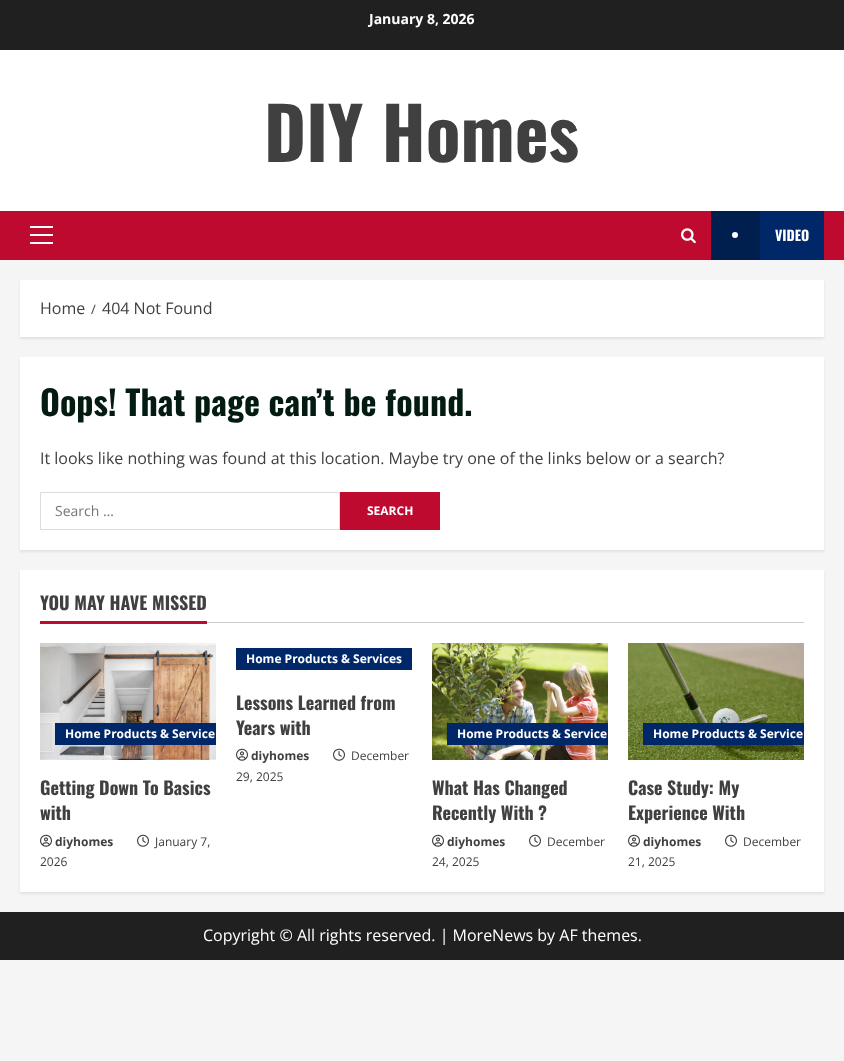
<svg xmlns="http://www.w3.org/2000/svg" width="844" height="1061">
<style>
.a{font:bold 14px Open Sans;fill:#fff}
.b{font:bold 72px Oswald;fill:#404040}
.c{font:bold 14px Oswald;fill:#fff}
.d{font:16px Open Sans;fill:#404040}
.e{font:13px Open Sans;fill:#404040}
.f{font:bold 34px Oswald;fill:#031b11}
.g{font:14px Open Sans;fill:#757575}
.h{font:bold 12px Open Sans;fill:#fff}
.i{font:bold 18px Oswald;fill:#404040}
.j{font:bold 12px Open Sans;fill:#404040}
.k{font:12px Open Sans;fill:#404040}
.l{font:16px Open Sans;fill:#fff}
</style>
<rect width="100%" height="100%" fill="#f5f5f5"/>
<path fill="#202020" d="M0 0h844v50H0z"/>
<path fill="#fff" d="M0 50h844v161H0z"/>
<path fill="#bf0a30" d="M0 211h844v49H0z"/>
<path fill="#fff" d="M30 234h23v2H30z"/>
<path fill="#fff" d="M30 226h23v2H30z"/>
<path fill="#fff" d="M30 242h23v2H30z"/>
<image href="1.png" x="681" y="228" width="15" height="16"/>
<path fill="#002868" d="M760 211h64v49H760z"/>
<path fill="#001e4e" d="M711 211h49v49H711z"/>
<circle fill="#fff" cx="735" cy="235" r="3"/>
<path fill="#00000014" filter="blur(1px)" d="M20 282h804v57H20z"/>
<path fill="#fff" d="M20 280h804v57H20z"/>
<path fill="#00000014" filter="blur(1px)" d="M20 359h804v193H20z"/>
<path fill="#fff" d="M20 357h804v193H20z"/>
<path fill="none" stroke="#dcdcdc" d="M40.5 492.5h299v37H40.5z"/>
<path fill="#bf0a30" d="M340 492h100v38H340z"/>
<path fill="#00000014" filter="blur(1px)" d="M20 572h804v322H20z"/>
<path fill="#fff" d="M20 570h804v322H20z"/>
<path fill="#ccc" d="M207 622h597v1H207z"/>
<path fill="#bf0a30" d="M40 621h167v3H40z"/>
<image href="2.png" x="40" y="643" width="176" height="117"/>
<path fill="#002868" d="M55 723h161v22H55z"/>
<image href="3.png" x="40" y="834" width="12" height="13"/>
<image href="4.png" x="137" y="834" width="12" height="13"/>
<path fill="#002868" d="M236 648h176v22H236z"/>
<image href="3.png" x="236" y="748" width="12" height="13"/>
<image href="4.png" x="333" y="748" width="12" height="13"/>
<image href="5.png" x="432" y="643" width="176" height="117"/>
<path fill="#002868" d="M447 723h161v22H447z"/>
<image href="3.png" x="432" y="834" width="12" height="13"/>
<image href="4.png" x="529" y="834" width="12" height="13"/>
<image href="6.png" x="628" y="643" width="176" height="117"/>
<path fill="#002868" d="M643 723h161v22H643z"/>
<image href="3.png" x="628" y="834" width="12" height="13"/>
<image href="4.png" x="725" y="834" width="12" height="13"/>
<path fill="#202020" d="M0 912h844v48H0z"/>
<text class="a" x="369" y="24">January 8, 2026</text>
<text class="b" x="264" y="162">DIY Homes</text>
<text class="c" x="775" y="241">VIDEO</text>
<text class="d" x="40" y="314">Home</text>
<text class="e" x="91" y="314">/</text>
<text class="d" x="102" y="314">404 Not Found</text>
<text class="f" x="40" y="416">Oops! That page can’t be found.</text>
<text class="d" x="40" y="464">It looks like nothing was found at this location. Maybe try one of the links below or a search?</text>
<text class="g" x="55" y="516">Search …</text>
<text class="h" x="367" y="515">SEARCH</text>
<text class="i" x="40" y="610">YOU MAY HAVE MISSED</text>
<text class="h" x="65" y="738">Home Products &amp; Service</text>
<text class="i" x="40" y="795">Getting Down To Basics</text>
<text class="i" x="40" y="820">with</text>
<text class="j" x="55" y="846">diyhomes</text>
<text class="k" x="155" y="846">January 7,</text>
<text class="k" x="40" y="866">2026</text>
<text class="h" x="246" y="663">Home Products &amp; Services</text>
<text class="i" x="236" y="710">Lessons Learned from</text>
<text class="i" x="236" y="735">Years with</text>
<text class="j" x="251" y="760">diyhomes</text>
<text class="k" x="351" y="760">December</text>
<text class="k" x="236" y="781">29, 2025</text>
<text class="h" x="457" y="738">Home Products &amp; Service</text>
<text class="i" x="432" y="795">What Has Changed</text>
<text class="i" x="432" y="820">Recently With ?</text>
<text class="j" x="447" y="846">diyhomes</text>
<text class="k" x="547" y="846">December</text>
<text class="k" x="432" y="866">24, 2025</text>
<text class="h" x="653" y="738">Home Products &amp; Service</text>
<text class="i" x="628" y="795">Case Study: My</text>
<text class="i" x="628" y="820">Experience With</text>
<text class="j" x="643" y="846">diyhomes</text>
<text class="k" x="743" y="846">December</text>
<text class="k" x="628" y="866">21, 2025</text>
<text class="l" x="203" y="941">Copyright © All rights reserved. | MoreNews by AF themes.</text>
</svg>
